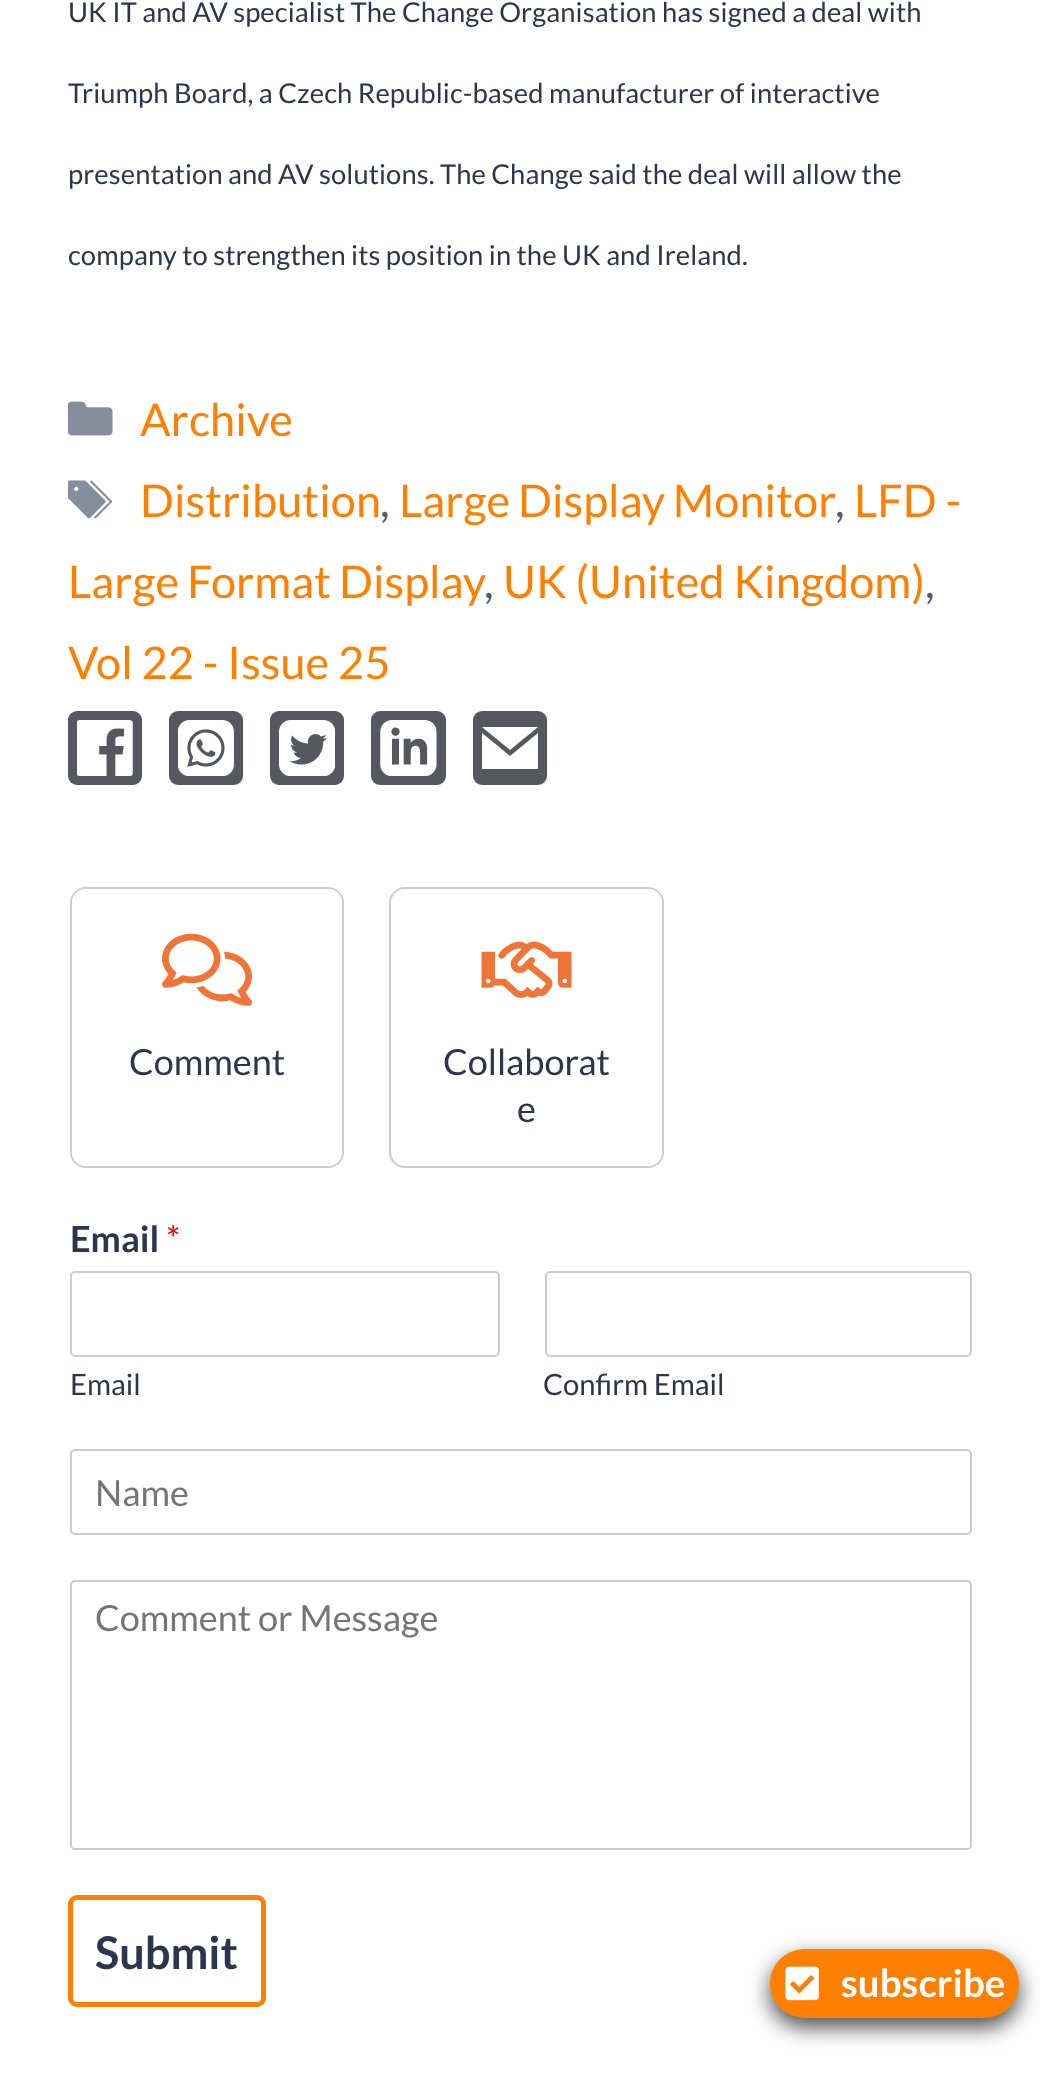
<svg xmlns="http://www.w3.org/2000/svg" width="1040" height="2076">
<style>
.a{font:27.35px Lato;letter-spacing:0.1px;fill:#2b364e}
.b{font:45px Lato;letter-spacing:0.1px;fill:#ff7f00}
.c{font:45px Lato;letter-spacing:0.1px;fill:#515c74}
.d{font:36px Lato;fill:#2b364e}
.e{font:bold 36px Lato;fill:#2b364e}
.f{font:36px Lato;fill:#f00}
.g{font:29.25px Lato;fill:#2b364e}
.h{font:36px Lato;fill:#757575}
.i{font:bold 45px Lato;fill:#2b364e}
.j{font:bold 38.25px Lato;letter-spacing:0.1px;fill:#fff}
</style>
<rect width="100%" height="100%" fill="#fff"/>
<image href="1.png" x="68" y="401" width="45" height="35"/>
<image href="2.png" x="68" y="480" width="45" height="39"/>
<rect fill="#575760" x="68" y="711" width="74" height="74" rx="9"/>
<image href="3.png" x="77" y="720" width="56" height="56"/>
<rect fill="#575760" x="169" y="711" width="74" height="74" rx="9"/>
<image href="4.png" x="178" y="720" width="56" height="56"/>
<rect fill="#575760" x="270" y="711" width="74" height="74" rx="9"/>
<image href="5.png" x="279" y="720" width="56" height="56"/>
<rect fill="#575760" x="371" y="711" width="75" height="74" rx="9"/>
<image href="6.png" x="380" y="720" width="57" height="56"/>
<rect fill="#575760" x="473" y="711" width="74" height="74" rx="9"/>
<path fill="#fff" d="M510 750l-28-23h56zm0 6l-28-23v36h56v-36z"/>
<rect fill="none" stroke="#ccc" stroke-width="2" x="71" y="888" width="272" height="279" rx="15"/>
<rect fill="#fff" x="72" y="889" width="270" height="277" rx="14"/>
<image href="7.png" x="162" y="933" width="90" height="73"/>
<rect fill="none" stroke="#ccc" stroke-width="2" x="390" y="888" width="273" height="279" rx="15"/>
<rect fill="#fff" x="392" y="889" width="270" height="277" rx="14"/>
<image href="8.png" x="481" y="941" width="91" height="57"/>
<rect fill="none" stroke="#ccc" stroke-width="2" x="71" y="1272" width="428" height="84" rx="4"/>
<rect fill="none" stroke="#ccc" stroke-width="2" x="546" y="1272" width="425" height="84" rx="4"/>
<rect fill="none" stroke="#ccc" stroke-width="2" x="71" y="1450" width="900" height="84" rx="4"/>
<rect fill="none" stroke="#ccc" stroke-width="2" x="71" y="1581" width="900" height="268" rx="4"/>
<rect fill="none" stroke="#ff7f00" stroke-width="5" x="70.5" y="1897.5" width="193" height="107" rx="6.5"/>
<rect fill="#000000b8" filter="blur(11px)" x="770" y="1958" width="249" height="69" rx="34.5"/>
<rect fill="#ff7f00" x="770" y="1949" width="249" height="69" rx="34.5"/>
<image href="9.png" x="785" y="1966" width="34" height="35"/>
<text class="a" x="68" y="22">UK IT and AV specialist The Change Organisation has signed a deal with</text>
<text class="a" x="68" y="103">Triumph Board, a Czech Republic-based manufacturer of interactive</text>
<text class="a" x="68" y="184">presentation and AV solutions. The Change said the deal will allow the</text>
<text class="a" x="68" y="265">company to strengthen its position in the UK and Ireland.</text>
<text class="b" x="140" y="436">Archive</text>
<text class="b" x="140" y="517">Distribution</text>
<text class="c" x="380" y="517">,</text>
<text class="b" x="399" y="517" word-spacing="-1">Large Display Monitor</text>
<text class="c" x="835" y="517">,</text>
<text class="b" x="854" y="517">LFD -</text>
<text class="b" x="68" y="598" word-spacing="-1">Large Format Display</text>
<text class="c" x="484" y="598">,</text>
<text class="b" x="503" y="598">UK (United Kingdom)</text>
<text class="c" x="925" y="598">,</text>
<text class="b" x="68" y="679">Vol 22 - Issue 25</text>
<text class="d" x="129" y="1075">Comment</text>
<text class="d" x="443" y="1075">Collaborat</text>
<text class="d" x="517" y="1122">e</text>
<text class="e" x="70" y="1252">Email</text>
<text class="f" x="166" y="1252">*</text>
<text class="g" x="70" y="1395">Email</text>
<text class="g" x="543" y="1395">Confirm Email</text>
<text class="h" x="95" y="1506">Name</text>
<text class="h" x="95" y="1631">Comment or Message</text>
<text class="i" x="95" y="1969">Submit</text>
<text class="j" x="841" y="1997">subscribe</text>
</svg>
